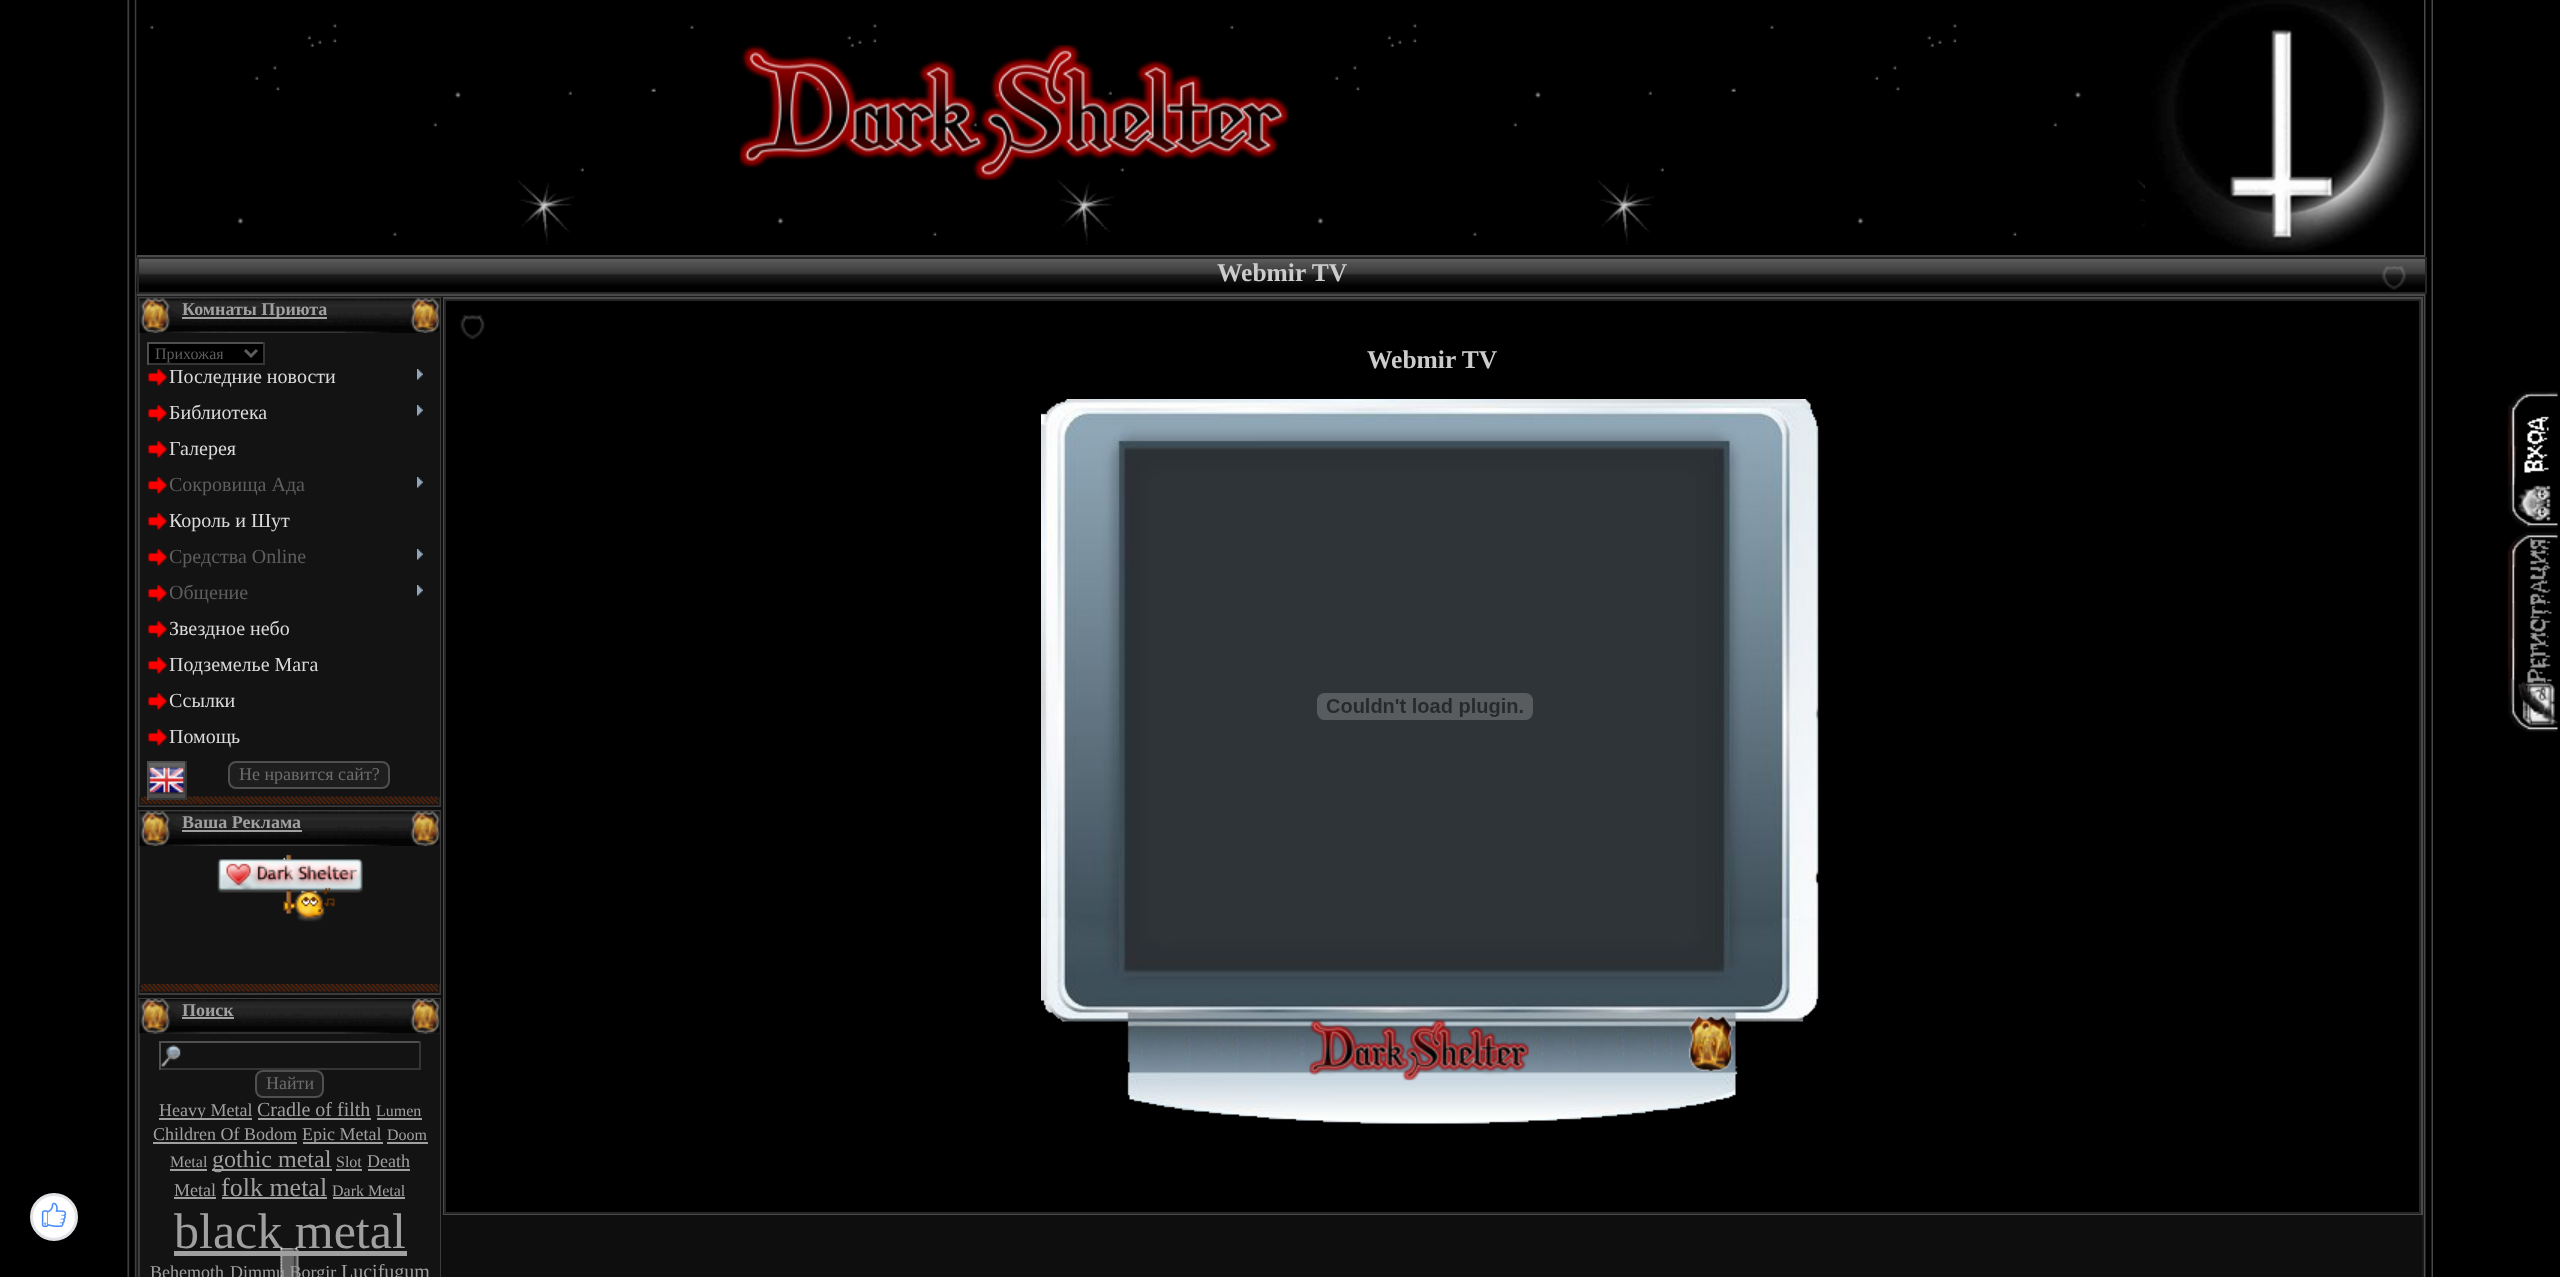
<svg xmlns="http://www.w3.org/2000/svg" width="2560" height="1277">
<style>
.a{font:bold 25.5px Liberation Serif;fill:#ccc}
.b{font:bold 18px Liberation Serif;fill:#a0a0a0}
.c{font:16px Liberation Serif;fill:#5e5e5e}
.d{font:20px Liberation Serif;fill:#dadada}
.e{font:20px Liberation Serif;fill:#5e5e5e}
.f{font:18px Liberation Serif;fill:#6d6d6d}
.g{font:18px Liberation Serif;fill:#a0a0a0}
.h{font:20px Liberation Serif;fill:#a0a0a0}
.i{font:16px Liberation Serif;fill:#a0a0a0}
.j{font:24px Liberation Serif;fill:#a0a0a0}
.k{font:26px Liberation Serif;fill:#a0a0a0}
.l{font:50px Liberation Serif;fill:#a0a0a0}
</style>
<rect width="100%" height="100%" fill="#000"/>
<image href="1.png" x="127" y="0" width="2306" height="1277"/>
<image href="2.png" x="136" y="0" width="2283" height="257"/>
<path fill="#494949" d="M137 255h2287v2H137z"/>
<image href="3.png" x="2145" y="0" width="278" height="252"/>
<image href="4.png" x="739" y="45" width="550" height="135"/>
<image href="5.png" x="136" y="258" width="2289" height="35"/>
<path fill="none" stroke="#262626" stroke-width="2" d="M138 258h2288v35H138z"/>
<image href="6.png" x="2382" y="265" width="24" height="25"/>
<path fill="#494949" d="M137 294h2287v2H137z"/>
<path fill="#0e0e0e" stroke="#1a1a1a" stroke-width="2" d="M138 297h2285v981H138z"/>
<circle fill="#fff" stroke="#e0e2e6" stroke-width="3" cx="54" cy="1217" r="22.5"/>
<image href="7.png" x="41" y="1202" width="26" height="25"/>
<path fill="none" stroke="#3c3c3c" stroke-width="2" d="M139 298h301v508H139z"/>
<path fill="#252525" d="M439 299h1v34H439z"/>
<image href="8.png" x="139" y="298" width="301" height="35"/>
<path fill="#a0a0a0" d="M182 317h145v2H182z"/>
<path fill="#131313" d="M140 333h300v464H140z"/>
<path fill="#000" d="M149 344h114v19H149z"/>
<path fill="#4f4f4f" d="M147 342h117v2H147z"/>
<path fill="#353535" d="M263 342h2v23H263z"/>
<path fill="#353535" d="M147 363h117v2H147z"/>
<path fill="#4f4f4f" d="M147 342h2v23H147z"/>
<path fill="none" stroke="#5e5e5e" stroke-width="3" d="M245 350l6 6l6-6"/>
<image href="9.png" x="148" y="369" width="19" height="17"/>
<image href="10.png" x="417" y="369" width="6" height="11"/>
<image href="9.png" x="148" y="405" width="19" height="17"/>
<image href="10.png" x="417" y="405" width="6" height="11"/>
<image href="9.png" x="148" y="441" width="19" height="17"/>
<image href="9.png" x="148" y="477" width="19" height="17"/>
<image href="10.png" x="417" y="477" width="6" height="11"/>
<image href="9.png" x="148" y="513" width="19" height="17"/>
<image href="9.png" x="148" y="549" width="19" height="17"/>
<image href="10.png" x="417" y="549" width="6" height="11"/>
<image href="9.png" x="148" y="585" width="19" height="17"/>
<image href="10.png" x="417" y="585" width="6" height="11"/>
<image href="9.png" x="148" y="621" width="19" height="17"/>
<image href="9.png" x="148" y="657" width="19" height="17"/>
<image href="9.png" x="148" y="693" width="19" height="17"/>
<image href="9.png" x="148" y="729" width="19" height="17"/>
<image href="13.png" x="139" y="796" width="301" height="10"/>
<path fill="#4d4d4d" d="M149 789h36v9H149z"/>
<image href="11.png" x="149" y="763" width="36" height="31"/>
<path fill="#4f4f4f" d="M147 761h39v2H147z"/>
<path fill="#353535" d="M185 761h2v39H185z"/>
<path fill="#353535" d="M147 798h39v2H147z"/>
<path fill="#4f4f4f" d="M147 761h2v39H147z"/>
<image href="12.png" x="148" y="767" width="37" height="27"/>
<rect fill="#1e1e1e" stroke="#4f4f4f" stroke-width="2" x="229" y="762" width="160" height="26" rx="7"/>
<path fill="none" stroke="#3c3c3c" stroke-width="2" d="M139 811h301v183H139z"/>
<path fill="#252525" d="M439 812h1v34H439z"/>
<image href="14.png" x="139" y="811" width="301" height="35"/>
<path fill="#a0a0a0" d="M182 830h120v2H182z"/>
<path fill="#131313" d="M140 846h300v138H140z"/>
<image href="15.png" x="217" y="854" width="146" height="68"/>
<image href="16.png" x="139" y="984" width="301" height="9"/>
<path fill="none" stroke="#3c3c3c" stroke-width="2" d="M139 999h301v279H139z"/>
<path fill="#252525" d="M140 999h300v35H140z"/>
<image href="17.png" x="139" y="999" width="301" height="35"/>
<path fill="#a0a0a0" d="M182 1017h52v2H182z"/>
<path fill="#131313" d="M140 1034h300v243H140z"/>
<image href="18.png" x="161" y="1044" width="20" height="23"/>
<path fill="#4f4f4f" d="M159 1041h261v2H159z"/>
<path fill="#353535" d="M419 1041h2v29H419z"/>
<path fill="#353535" d="M159 1068h261v2H159z"/>
<path fill="#4f4f4f" d="M159 1041h2v29H159z"/>
<rect fill="#1e1e1e" stroke="#4f4f4f" stroke-width="2" x="256" y="1071" width="67" height="26" rx="7"/>
<image href="19.png" x="280" y="1248" width="19" height="29"/>
<path fill="#a0a0a0" d="M159 1118h93v2H159z"/>
<path fill="#a0a0a0" d="M258 1118h113v2H258z"/>
<path fill="#a0a0a0" d="M377 1118h45v2H377z"/>
<path fill="#a0a0a0" d="M153 1142h144v2H153z"/>
<path fill="#a0a0a0" d="M303 1142h80v2H303z"/>
<path fill="#a0a0a0" d="M387 1142h41v2H387z"/>
<path fill="#a0a0a0" d="M170 1169h37v2H170z"/>
<path fill="#a0a0a0" d="M212 1169h120v2H212z"/>
<path fill="#a0a0a0" d="M336 1169h26v2H336z"/>
<path fill="#a0a0a0" d="M368 1169h42v2H368z"/>
<path fill="#a0a0a0" d="M174 1197h42v2H174z"/>
<path fill="#a0a0a0" d="M222 1197h105v2H222z"/>
<path fill="#a0a0a0" d="M333 1197h72v2H333z"/>
<path fill="#a0a0a0" d="M174 1251h233v5H174z"/>
<path fill="none" stroke="#494949" stroke-width="2" d="M444 298h1978v916H444z"/>
<path fill="#000" stroke="#262626" stroke-width="2" d="M445 300h1975v913H445z"/>
<image href="20.png" x="460" y="315" width="25" height="24"/>
<image href="21.png" x="1041" y="399" width="778" height="725"/>
<image href="22.png" x="1317" y="693" width="216" height="27"/>
<image href="23.png" x="2507" y="391" width="51" height="137"/>
<image href="24.png" x="2507" y="532" width="51" height="200"/>
<text class="a" x="1217" y="281">Webmir TV</text>
<text class="b" x="182" y="315">Комнаты Приюта</text>
<text class="c" x="155" y="359">Прихожая</text>
<text class="d" x="169" y="383">Последние новости</text>
<text class="d" x="169" y="419">Библиотека</text>
<text class="d" x="169" y="455">Галерея</text>
<text class="e" x="169" y="491">Сокровища Ада</text>
<text class="d" x="169" y="527">Король и Шут</text>
<text class="e" x="169" y="563">Средства Online</text>
<text class="e" x="169" y="599">Общение</text>
<text class="d" x="169" y="635">Звездное небо</text>
<text class="d" x="169" y="671">Подземелье Мага</text>
<text class="d" x="169" y="707">Ссылки</text>
<text class="d" x="169" y="743">Помощь</text>
<text class="f" x="239" y="780">Не нравится сайт?</text>
<text class="b" x="182" y="828">Ваша Реклама</text>
<text class="b" x="182" y="1016">Поиск</text>
<text class="f" x="266" y="1089">Найти</text>
<text class="g" x="159" y="1116">Heavy Metal</text>
<text class="h" x="257" y="1116">Cradle of filth</text>
<text class="i" x="376" y="1116">Lumen</text>
<text class="g" x="153" y="1140">Children Of Bodom</text>
<text class="g" x="302" y="1140">Epic Metal</text>
<text class="i" x="387" y="1140">Doom</text>
<text class="i" x="170" y="1167">Metal</text>
<text class="j" x="212" y="1167">gothic metal</text>
<text class="i" x="336" y="1167">Slot</text>
<text class="g" x="367" y="1167">Death</text>
<text class="g" x="174" y="1196">Metal</text>
<text class="k" x="221" y="1196">folk metal</text>
<text class="i" x="332" y="1196">Dark Metal</text>
<text class="l" x="174" y="1248">black metal</text>
<text class="g" x="150" y="1278">Behemoth</text>
<text class="g" x="230" y="1278">Dimmu Borgir</text>
<text class="h" x="341" y="1278">Lucifugum</text>
<text class="a" x="1367" y="368">Webmir TV</text>
</svg>
